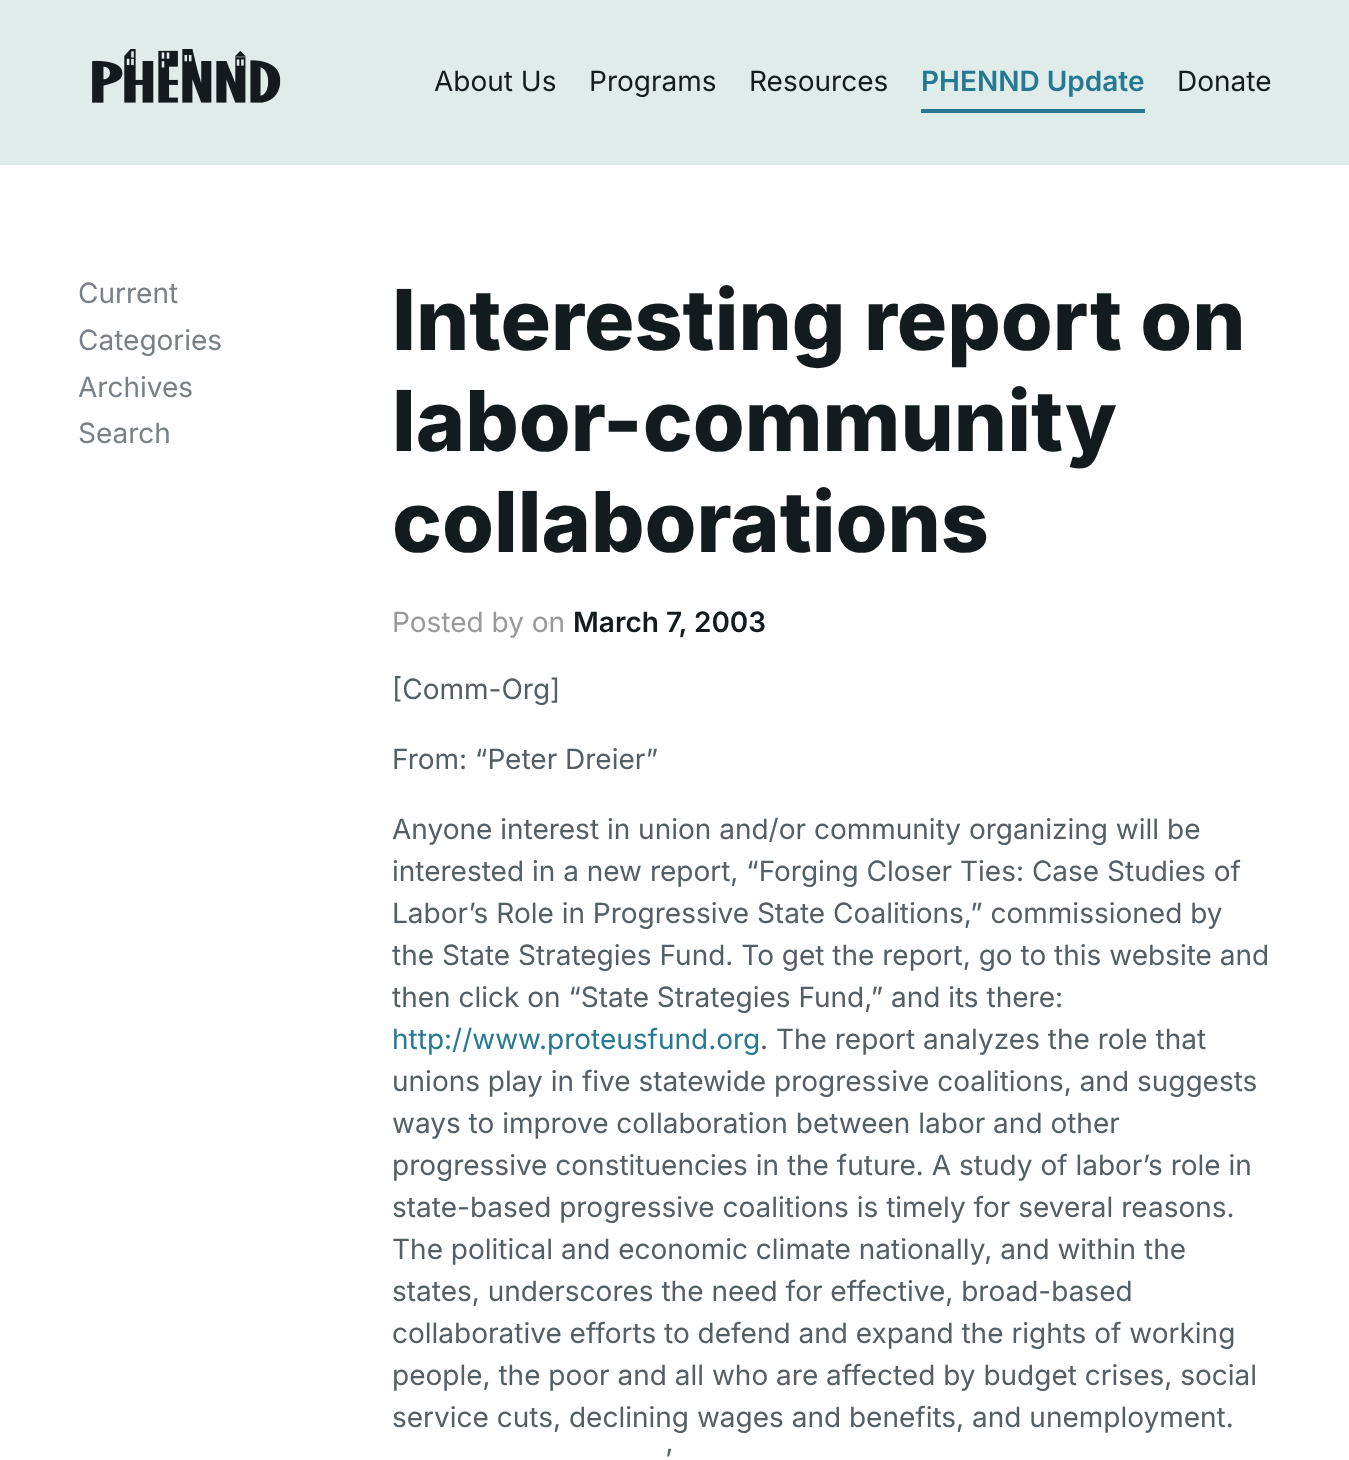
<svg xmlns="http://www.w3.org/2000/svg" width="1349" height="1460">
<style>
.a{font:28px Inter;fill:#141b1f}
.b{font:600 28px Inter;fill:#277992}
.c{font:28px Inter;fill:#798186}
.d{font:800 84px Inter;fill:#141b1f}
.e{font:28px Inter;fill:#999}
.f{font:600 28px Inter;fill:#141b1f}
.g{font:28px Inter;fill:#535e65}
.h{font:28px Inter;fill:#277992}
</style>
<rect width="100%" height="100%" fill="#fff"/>
<path fill="#dfece9" d="M0 0h1349v165H0z"/>
<image href="1.png" x="92" y="49" width="189" height="54"/>
<path fill="#277992" d="M921 109h224v4H921z"/>
<text class="a" x="434" y="91">About Us</text>
<text class="a" x="589" y="91">Programs</text>
<text class="a" x="749" y="91">Resources</text>
<text class="b" x="921" y="91">PHENND Update</text>
<text class="a" x="1177" y="91">Donate</text>
<text class="c" x="78" y="303">Current</text>
<text class="c" x="78" y="350">Categories</text>
<text class="c" x="78" y="397">Archives</text>
<text class="c" x="78" y="443">Search</text>
<text class="d" x="392" y="350">Interesting report on</text>
<text class="d" x="392" y="451">labor-community</text>
<text class="d" x="392" y="552">collaborations</text>
<text class="e" x="392" y="632">Posted by on</text>
<text class="f" x="573" y="632">March 7, 2003</text>
<text class="g" x="392" y="699">[Comm-Org]</text>
<text class="g" x="392" y="769">From: “Peter Dreier”</text>
<text class="g" x="392" y="839">Anyone interest in union and/or community organizing will be</text>
<text class="g" x="392" y="881">interested in a new report, “Forging Closer Ties: Case Studies of</text>
<text class="g" x="392" y="923">Labor’s Role in Progressive State Coalitions,” commissioned by</text>
<text class="g" x="392" y="965">the State Strategies Fund. To get the report, go to this website and</text>
<text class="g" x="392" y="1007">then click on “State Strategies Fund,” and its there:</text>
<text class="h" x="392" y="1049">http://www.proteusfund.org</text>
<text class="g" x="760" y="1049">. The report analyzes the role that</text>
<text class="g" x="392" y="1091">unions play in five statewide progressive coalitions, and suggests</text>
<text class="g" x="392" y="1133">ways to improve collaboration between labor and other</text>
<text class="g" x="392" y="1175">progressive constituencies in the future. A study of labor’s role in</text>
<text class="g" x="392" y="1217">state-based progressive coalitions is timely for several reasons.</text>
<text class="g" x="392" y="1259">The political and economic climate nationally, and within the</text>
<text class="g" x="392" y="1301">states, underscores the need for effective, broad-based</text>
<text class="g" x="392" y="1343">collaborative efforts to defend and expand the rights of working</text>
<text class="g" x="392" y="1385">people, the poor and all who are affected by budget crises, social</text>
<text class="g" x="392" y="1427">service cuts, declining wages and benefits, and unemployment.</text>
<text class="g" x="665" y="1469">’</text>
</svg>
